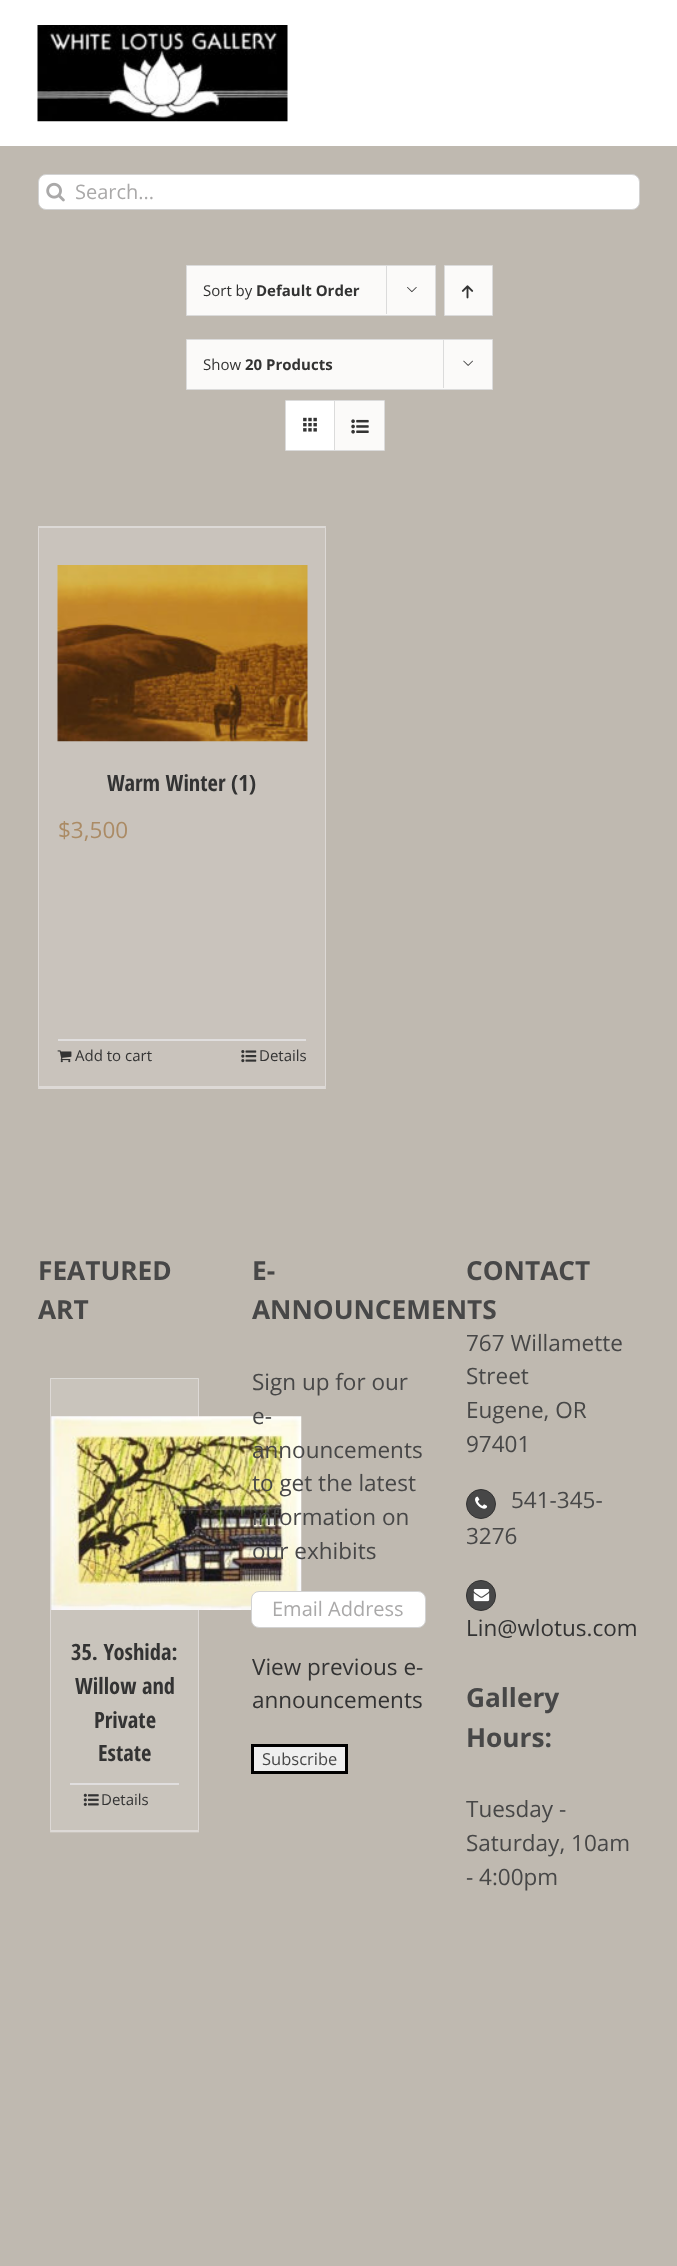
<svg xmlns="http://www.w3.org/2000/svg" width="677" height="2266">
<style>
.a{font:20px Open Sans;fill:#aaa9a9}
.b{font:15px Open Sans;fill:#333}
.c{font:bold 15px Open Sans;fill:#333}
.d{font:bold 22.5px Open Sans Condensed;fill:#333}
.e{font:22.5px Open Sans;fill:#ab8b65}
.f{font:bold 26.25px Open Sans;fill:#474747}
.g{font:22.5px Open Sans;fill:#474747}
.h{font:22.5px Open Sans;fill:#333}
.i{font:16.5px Open Sans;fill:#474747}
</style>
<rect width="100%" height="100%" fill="#bfb9b0"/>
<path fill="#fff" d="M0 0h677v146H0z"/>
<image href="1.png" x="37" y="25" width="251" height="97"/>
<rect fill="#fff" stroke="#d2d2d2" x="38.5" y="174.5" width="601" height="35" rx="7.5"/>
<image href="2.png" x="46" y="182" width="19" height="20"/>
<path fill="#fbfaf9" stroke="#dbdbdb" d="M186.5 265.5h249v50H186.5z"/>
<path fill="#dbdbdb" d="M386 265h1v49H386z"/>
<image href="3.png" x="407" y="287" width="10" height="6"/>
<path fill="#fbfaf9" stroke="#dbdbdb" d="M444.5 265.5h48v50H444.5z"/>
<image href="4.png" x="461" y="285" width="13" height="14"/>
<path fill="#fbfaf9" stroke="#dbdbdb" d="M186.5 339.5h306v50H186.5z"/>
<path fill="#dbdbdb" d="M443 339h1v49H443z"/>
<image href="5.png" x="463" y="360" width="10" height="6"/>
<path fill="none" stroke="#dbdbdb" d="M285.5 400.5h99v50H285.5z"/>
<path fill="#fff" d="M286 401h48v49H286z"/>
<path fill="#dbdbdb" d="M334 401h1v49H334z"/>
<image href="6.png" x="303" y="417" width="14" height="15"/>
<path fill="#fbfaf9" d="M335 401h49v49H335z"/>
<image href="7.png" x="351" y="419" width="18" height="15"/>
<path fill="#c9c3bc" d="M38 526h288v563H38z"/>
<path fill="#dcd9d6" d="M38 526h288l-1 2h-286z"/>
<path fill="#ebeaea91" d="M326 526v563l-1-3v-558z"/>
<path fill="#ebeaea91" d="M326 1089h-288l1-3h286z"/>
<path fill="#ebeaea91" d="M38 1089v-563l1 2v558z"/>
<image href="8.png" x="57" y="565" width="251" height="177"/>
<path fill="#e0dede" d="M58 1039h248v2H58z"/>
<image href="9.png" x="57" y="1050" width="15" height="13"/>
<image href="10.png" x="241" y="1050" width="16" height="13"/>
<path fill="#c9c4bc" d="M50 1378h149v455H50z"/>
<path fill="#dcdad6" d="M50 1378h149l-1 1h-147z"/>
<path fill="#ebeaea91" d="M199 1378v454l-1-2v-451z"/>
<path fill="#ebeaea91" d="M199 1832h-149l1-2h147z"/>
<path fill="#ebeaea91" d="M50 1832v-454l1 1v451z"/>
<image href="11.png" x="51" y="1416" width="251" height="194"/>
<path fill="#e0dede" d="M70 1783h109v2H70z"/>
<image href="12.png" x="83" y="1793" width="16" height="13"/>
<rect fill="#fff" stroke="#d2d2d2" x="251.5" y="1591.5" width="174" height="36" rx="7.5"/>
<path fill="#efefef" stroke="#000" stroke-width="3" d="M252.5 1745.5h94v27H252.5z"/>
<circle fill="#474747" stroke="#333" cx="481" cy="1504" r="14.5"/>
<image href="13.png" x="475" y="1496" width="13" height="13"/>
<rect fill="#474747" stroke="#333" x="466.5" y="1580.5" width="29" height="30" rx="14.5"/>
<image href="14.png" x="473" y="1589" width="17" height="13"/>
<text class="a" x="75" y="199">Search...</text>
<text class="b" x="203" y="296">Sort by</text>
<text class="c" x="256" y="296">Default Order</text>
<text class="b" x="203" y="370">Show</text>
<text class="c" x="245" y="370">20 Products</text>
<text class="d" x="107" y="791">Warm Winter (1)</text>
<text class="e" x="58" y="838">$3,500</text>
<text class="b" x="75" y="1061">Add to cart</text>
<text class="b" x="259" y="1061">Details</text>
<text class="f" x="38" y="1280">FEATURED</text>
<text class="f" x="38" y="1319">ART</text>
<text class="d" x="71" y="1660">35. Yoshida:</text>
<text class="d" x="75" y="1694">Willow and</text>
<text class="d" x="94" y="1728">Private</text>
<text class="d" x="98" y="1761">Estate</text>
<text class="b" x="101" y="1805">Details</text>
<text class="f" x="252" y="1280">E-</text>
<text class="f" x="252" y="1319">ANNOUNCEMENTS</text>
<text class="g" x="252" y="1390">Sign up for our</text>
<text class="g" x="252" y="1424">e-</text>
<text class="g" x="252" y="1458">announcements</text>
<text class="g" x="252" y="1491">to get the latest</text>
<text class="g" x="252" y="1525">information on</text>
<text class="g" x="252" y="1559">our exhibits</text>
<text class="a" x="272" y="1616">Email Address</text>
<text class="h" x="252" y="1675">View previous e-</text>
<text class="h" x="252" y="1708">announcements</text>
<text class="i" x="262" y="1765">Subscribe</text>
<text class="f" x="466" y="1280">CONTACT</text>
<text class="g" x="466" y="1351">767 Willamette</text>
<text class="g" x="466" y="1384">Street</text>
<text class="g" x="466" y="1418">Eugene, OR</text>
<text class="g" x="466" y="1452">97401</text>
<text class="g" x="511" y="1508">541-345-</text>
<text class="g" x="466" y="1544">3276</text>
<text class="h" x="466" y="1636">Lin@wlotus.com</text>
<text class="f" x="466" y="1707">Gallery</text>
<text class="f" x="466" y="1747">Hours:</text>
<text class="g" x="466" y="1817">Tuesday -</text>
<text class="g" x="466" y="1851">Saturday, 10am</text>
<text class="g" x="466" y="1885">- 4:00pm</text>
</svg>
